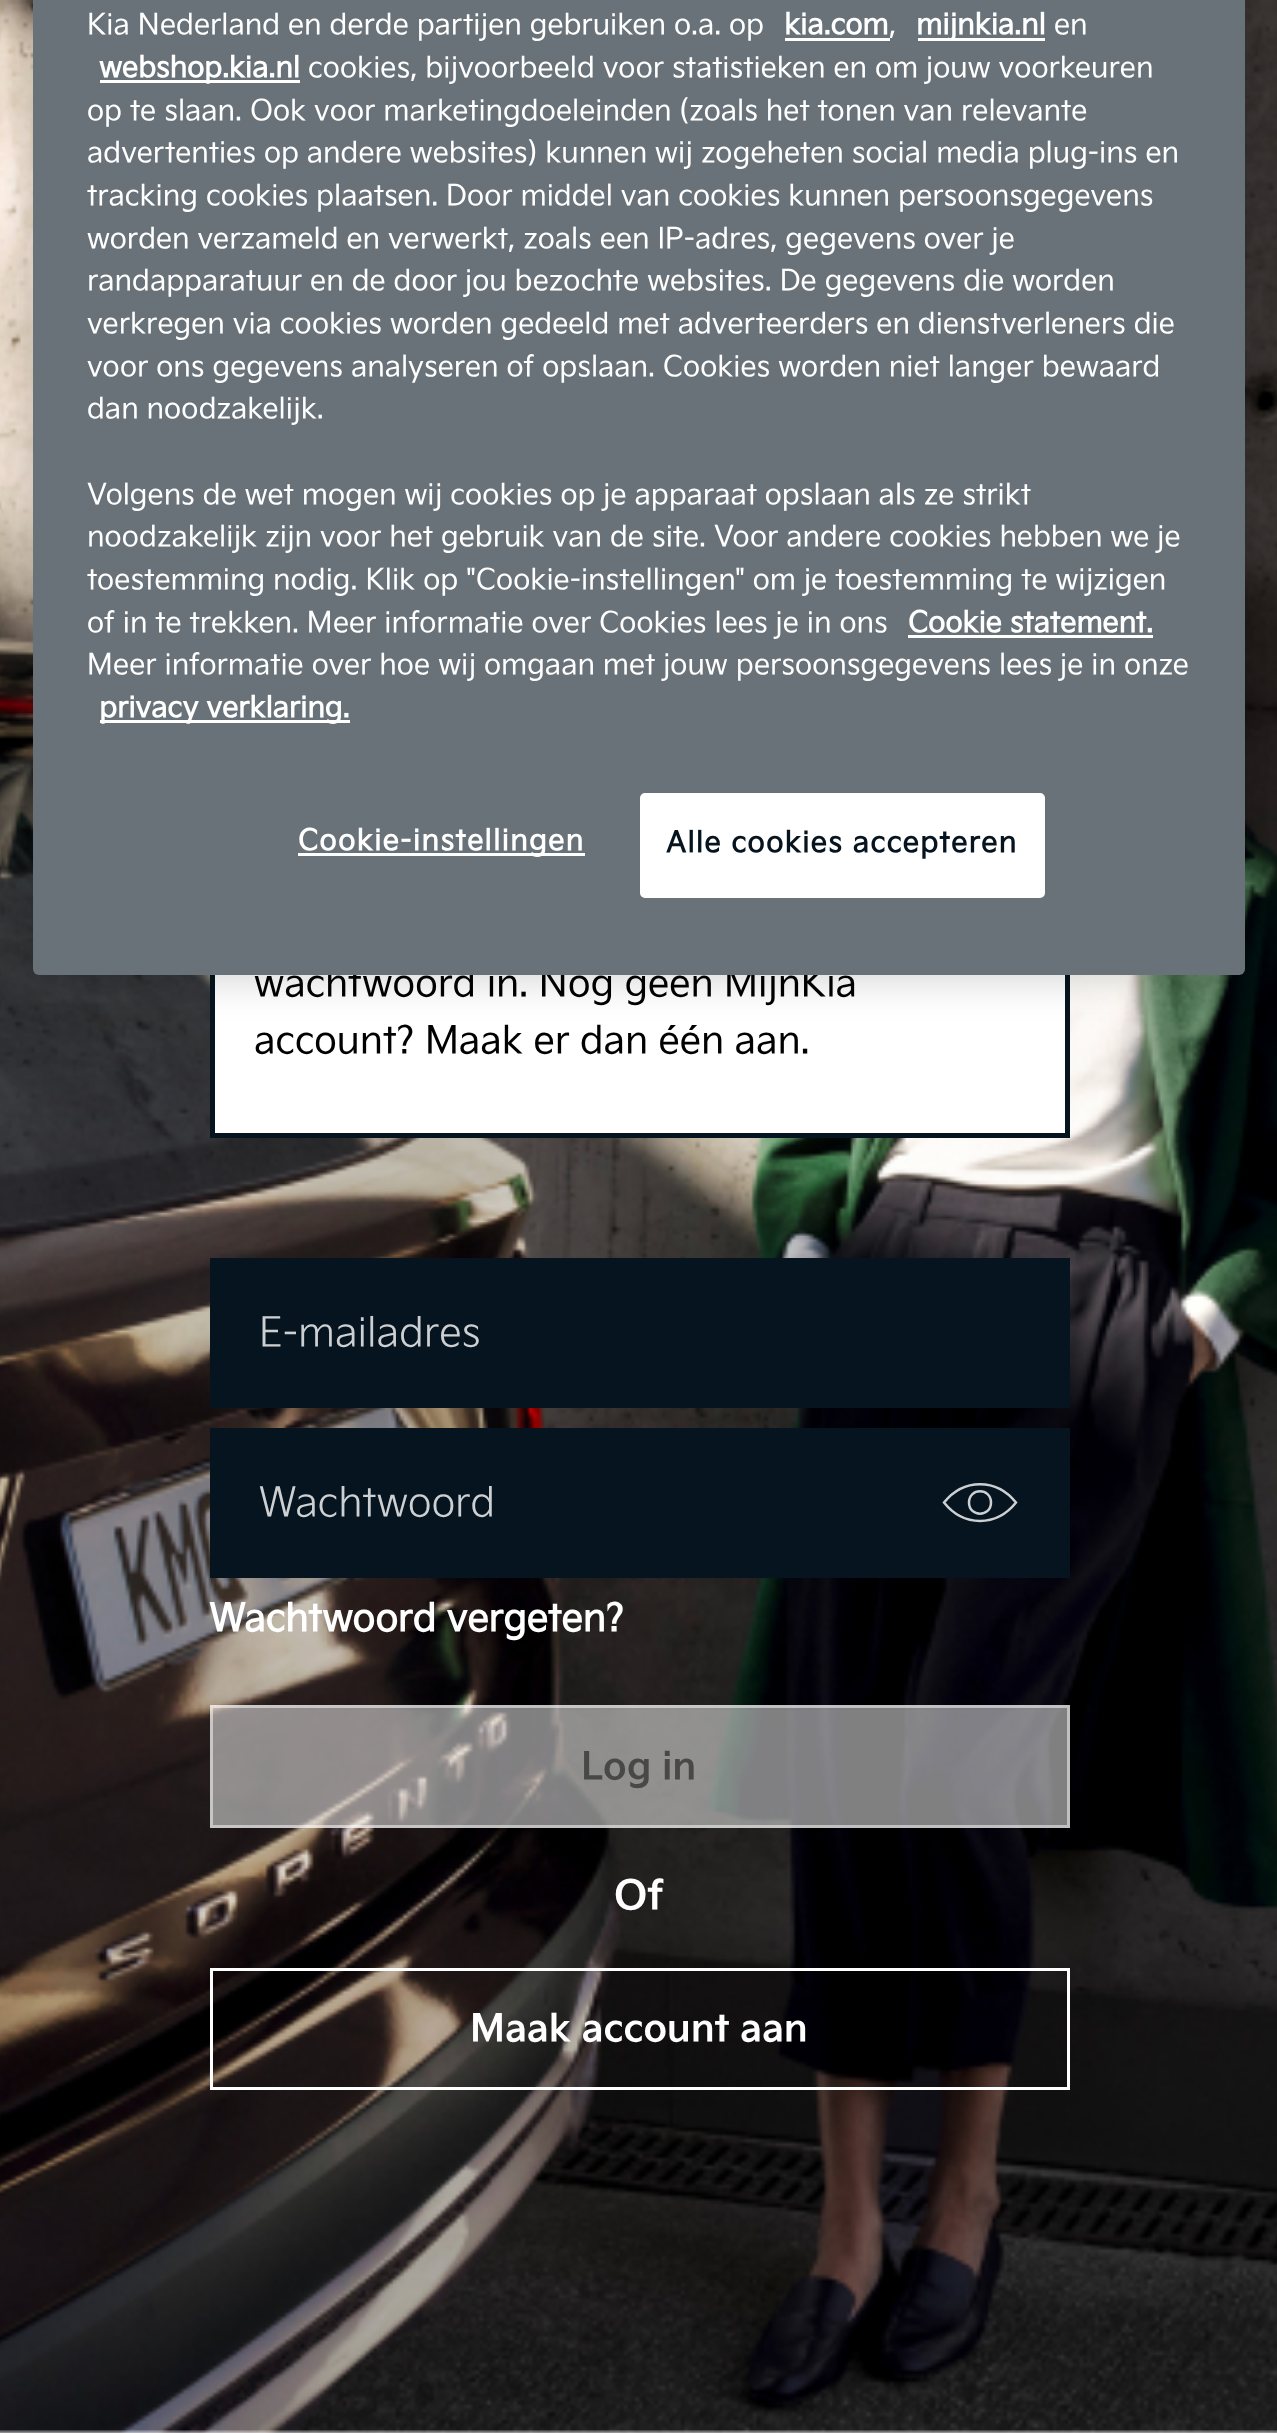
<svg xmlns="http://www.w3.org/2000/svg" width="1277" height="2433">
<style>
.a{font:37.5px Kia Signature;fill:#000}
.b{font:bold 28.45px Kia Signature;letter-spacing:1.4px;fill:#fff}
.c{font:bold 28.45px Kia Signature;letter-spacing:1.4px;fill:#05141f}
.d{font:bold 28.45px Kia Signature;fill:#fff}
.e{font:28.45px Kia Signature;fill:#fff}
.f{font:300 40px Kia Signature;fill:#cdd0d2}
.g{font:bold 37.5px Kia Signature;fill:#fff}
.h{font:bold 37.5px 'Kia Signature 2';fill:#484847}
.i{font:bold 40px 'Kia Signature 2';fill:#fff}
.j{font:bold 37.5px 'Kia Signature 2';fill:#fff}
</style>
<rect width="100%" height="100%" fill="#fff"/>
<image href="1.png" x="0" y="0" width="1277" height="2433"/>
<path fill="#fff" d="M215 975h850v158H215z"/>
<path fill="none" stroke="#05141f" stroke-width="5" d="M212.5 522.5h855v613H212.5z"/>
<rect fill="#00000033" filter="blur(22.5px)" x="33" y="-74" width="1212" height="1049" rx="6"/>
<path fill="#05141f" d="M210 1258h860v150H210z"/>
<path fill="#05141f" d="M210 1428h860v150H210z"/>
<path fill="none" stroke="#cdd0d2" stroke-width="2.5" d="M1016 1502.5c-19.5 24.5-52.5 24.5-72 0c19.5-24.5 52.5-24.5 72 0z"/>
<path fill="none" stroke="#cdd0d2" stroke-width="2.5" d="M969 1502.5c0 15 22 15 22 0c0-15-22-15-22 0z"/>
<path fill="#ffffff80" d="M210 1705h860v123H210z"/>
<path fill="none" stroke="#ffffff80" stroke-width="3" d="M211.5 1706.5h857v120H211.5z"/>
<path fill="none" stroke="#fff" stroke-width="3" d="M211.5 1969.5h857v119H211.5z"/>
<text class="a" x="254" y="996">wachtwoord in. Nog geen MijnKia</text>
<rect fill="#697279" x="33" y="-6" width="1212" height="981" rx="6"/>
<path fill="#fff" d="M298 853h287v3H298z"/>
<text class="b" x="298" y="850">Cookie-instellingen</text>
<rect fill="#fff" stroke="#fff" stroke-width="3" x="641.5" y="794.5" width="402" height="102" rx="3.5"/>
<text class="c" x="666" y="852">Alle cookies accepteren</text>
<path fill="#fff" d="M100 720h250v3H100z"/>
<text class="d" x="99" y="717">privacy verklaring.</text>
<text class="e" x="87" y="674">Meer informatie over hoe wij omgaan met jouw persoonsgegevens lees je in onze</text>
<text class="d" x="908" y="632">Cookie statement.</text>
<path fill="#fff" d="M908 635h245v3H908z"/>
<text class="e" x="87" y="632">of in te trekken. Meer informatie over Cookies lees je in ons</text>
<text class="e" x="87" y="589">toestemming nodig. Klik op "Cookie-instellingen" om je toestemming te wijzigen</text>
<text class="e" x="87" y="546">noodzakelijk zijn voor het gebruik van de site. Voor andere cookies hebben we je</text>
<text class="e" x="87" y="504">Volgens de wet mogen wij cookies op je apparaat opslaan als ze strikt</text>
<text class="e" x="87" y="418">dan noodzakelijk.</text>
<text class="e" x="87" y="376">voor ons gegevens analyseren of opslaan. Cookies worden niet langer bewaard</text>
<text class="e" x="87" y="333">verkregen via cookies worden gedeeld met adverteerders en dienstverleners die</text>
<text class="e" x="87" y="290">randapparatuur en de door jou bezochte websites. De gegevens die worden</text>
<text class="e" x="87" y="248">worden verzameld en verwerkt, zoals een IP-adres, gegevens over je</text>
<text class="e" x="87" y="205">tracking cookies plaatsen. Door middel van cookies kunnen persoonsgegevens</text>
<text class="e" x="87" y="162">advertenties op andere websites) kunnen wij zogeheten social media plug-ins en</text>
<text class="e" x="87" y="120">op te slaan. Ook voor marketingdoeleinden (zoals het tonen van relevante</text>
<text class="e" x="308" y="77">cookies, bijvoorbeeld voor statistieken en om jouw voorkeuren</text>
<path fill="#fff" d="M100 80h200v3H100z"/>
<text class="d" x="99" y="77">webshop.kia.nl</text>
<text class="e" x="1054" y="34">en</text>
<path fill="#fff" d="M918 38h127v3H918z"/>
<text class="d" x="916" y="34">mijnkia.nl</text>
<text class="e" x="889" y="34">,</text>
<text class="d" x="784" y="34">kia.com</text>
<path fill="#fff" d="M785 38h105v3H785z"/>
<text class="e" x="87" y="34">Kia Nederland en derde partijen gebruiken o.a. op</text>
<text class="a" x="254" y="1053">account? Maak er dan één aan.</text>
<text class="f" x="259" y="1346">E-mailadres</text>
<text class="f" x="259" y="1516">Wachtwoord</text>
<text class="g" x="209" y="1631">Wachtwoord vergeten?</text>
<text class="h" x="581" y="1779">Log in</text>
<text class="i" x="614" y="1909">Of</text>
<text class="j" x="470" y="2041">Maak account aan</text>
</svg>
